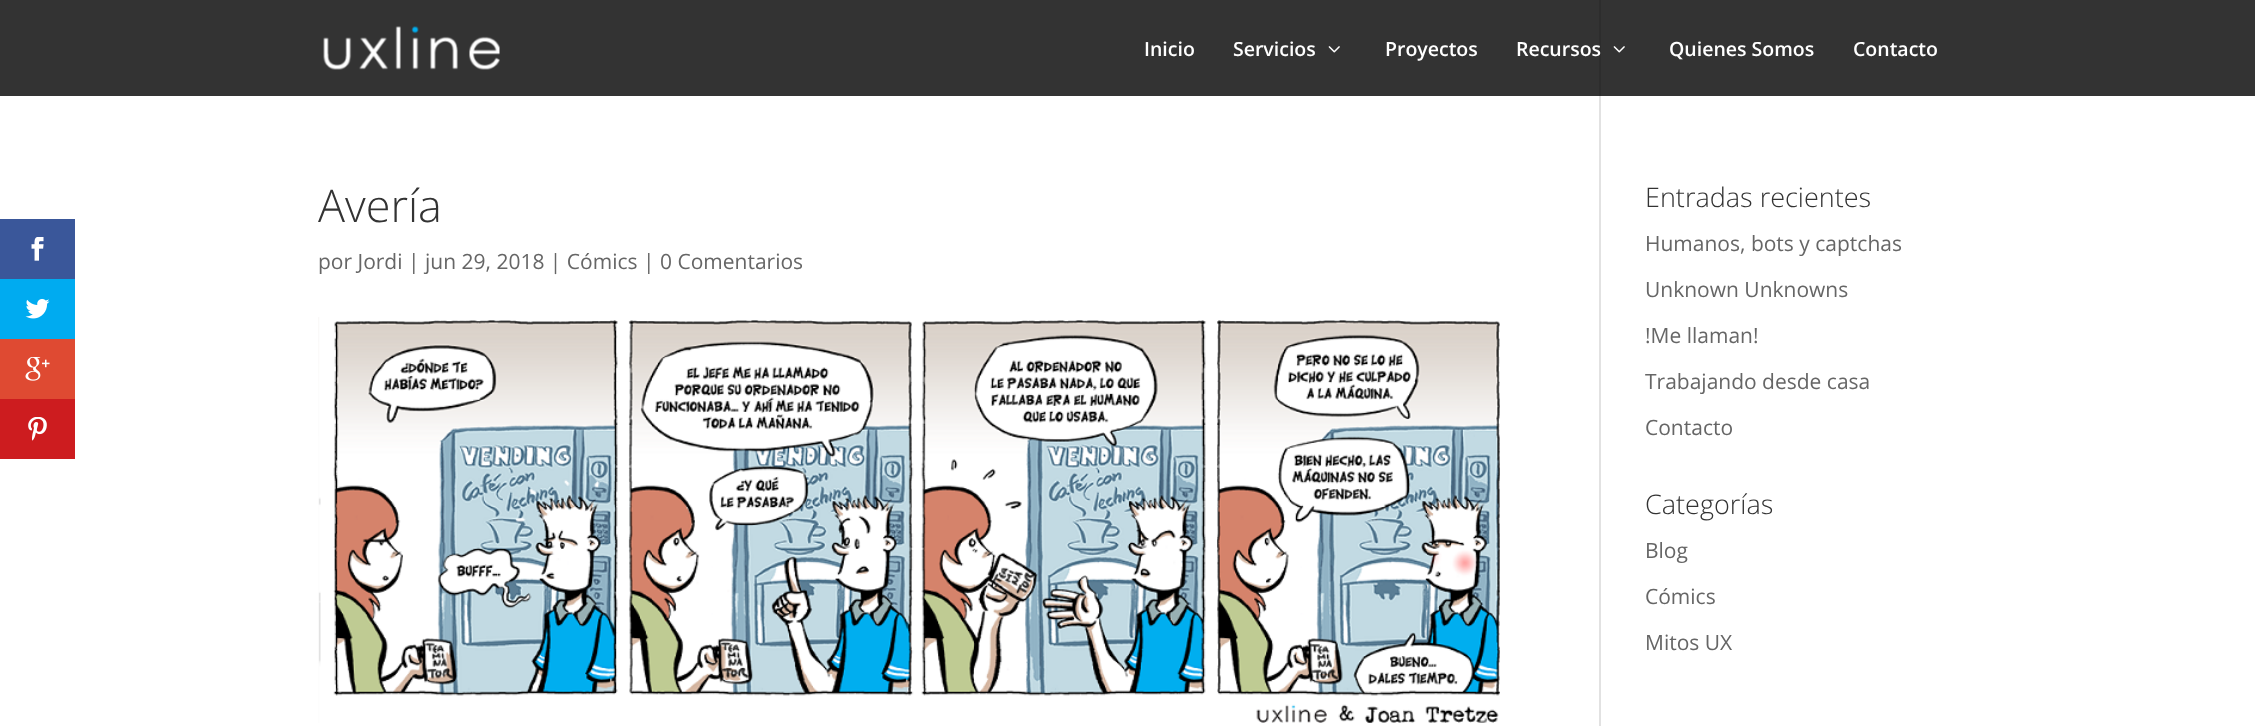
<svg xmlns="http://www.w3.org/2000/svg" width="2255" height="726">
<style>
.a{font:600 19.5px Open Sans;fill:#fff}
.b{font:300 45px Open Sans;fill:#333}
.c{font:21px Open Sans;fill:#666}
.d{font:300 27px Open Sans;fill:#333}
</style>
<rect width="100%" height="100%" fill="#fff"/>
<path fill="#333" d="M0 0h2255v96H0z"/>
<path fill="#3a579a" d="M0 219h75v60H0z"/>
<image href="1.png" x="31" y="237" width="13" height="24"/>
<path fill="#00abf0" d="M0 279h75v60H0z"/>
<image href="2.png" x="25" y="298" width="25" height="21"/>
<path fill="#df4a32" d="M0 339h75v60H0z"/>
<image href="3.png" x="25" y="357" width="25" height="24"/>
<path fill="#cd1c1f" d="M0 399h75v60H0z"/>
<image href="4.png" x="28" y="417" width="19" height="24"/>
<image href="5.png" x="323" y="26" width="177" height="44"/>
<image href="6.png" x="1328" y="46" width="12" height="7"/>
<image href="6.png" x="1613" y="46" width="12" height="7"/>
<path fill="#e2e2e2" d="M1599 96h2v630H1599z"/>
<path fill="#2d2d2d" d="M1599 0h2v96H1599z"/>
<image href="7.png" x="318" y="317" width="1182" height="406"/>
<text class="a" x="1144" y="56">Inicio</text>
<text class="a" x="1233" y="56">Servicios</text>
<text class="a" x="1385" y="56">Proyectos</text>
<text class="a" x="1516" y="56">Recursos</text>
<text class="a" x="1669" y="56">Quienes Somos</text>
<text class="a" x="1853" y="56">Contacto</text>
<text class="b" x="318" y="222">Avería</text>
<text class="c" x="318" y="269">por Jordi | jun 29, 2018 | Cómics | 0 Comentarios</text>
<text class="d" x="1645" y="207">Entradas recientes</text>
<text class="c" x="1645" y="251">Humanos, bots y captchas</text>
<text class="c" x="1645" y="297">Unknown Unknowns</text>
<text class="c" x="1645" y="343">!Me llaman!</text>
<text class="c" x="1645" y="389">Trabajando desde casa</text>
<text class="c" x="1645" y="435">Contacto</text>
<text class="d" x="1645" y="514">Categorías</text>
<text class="c" x="1645" y="558">Blog</text>
<text class="c" x="1645" y="604">Cómics</text>
<text class="c" x="1645" y="650">Mitos UX</text>
</svg>
